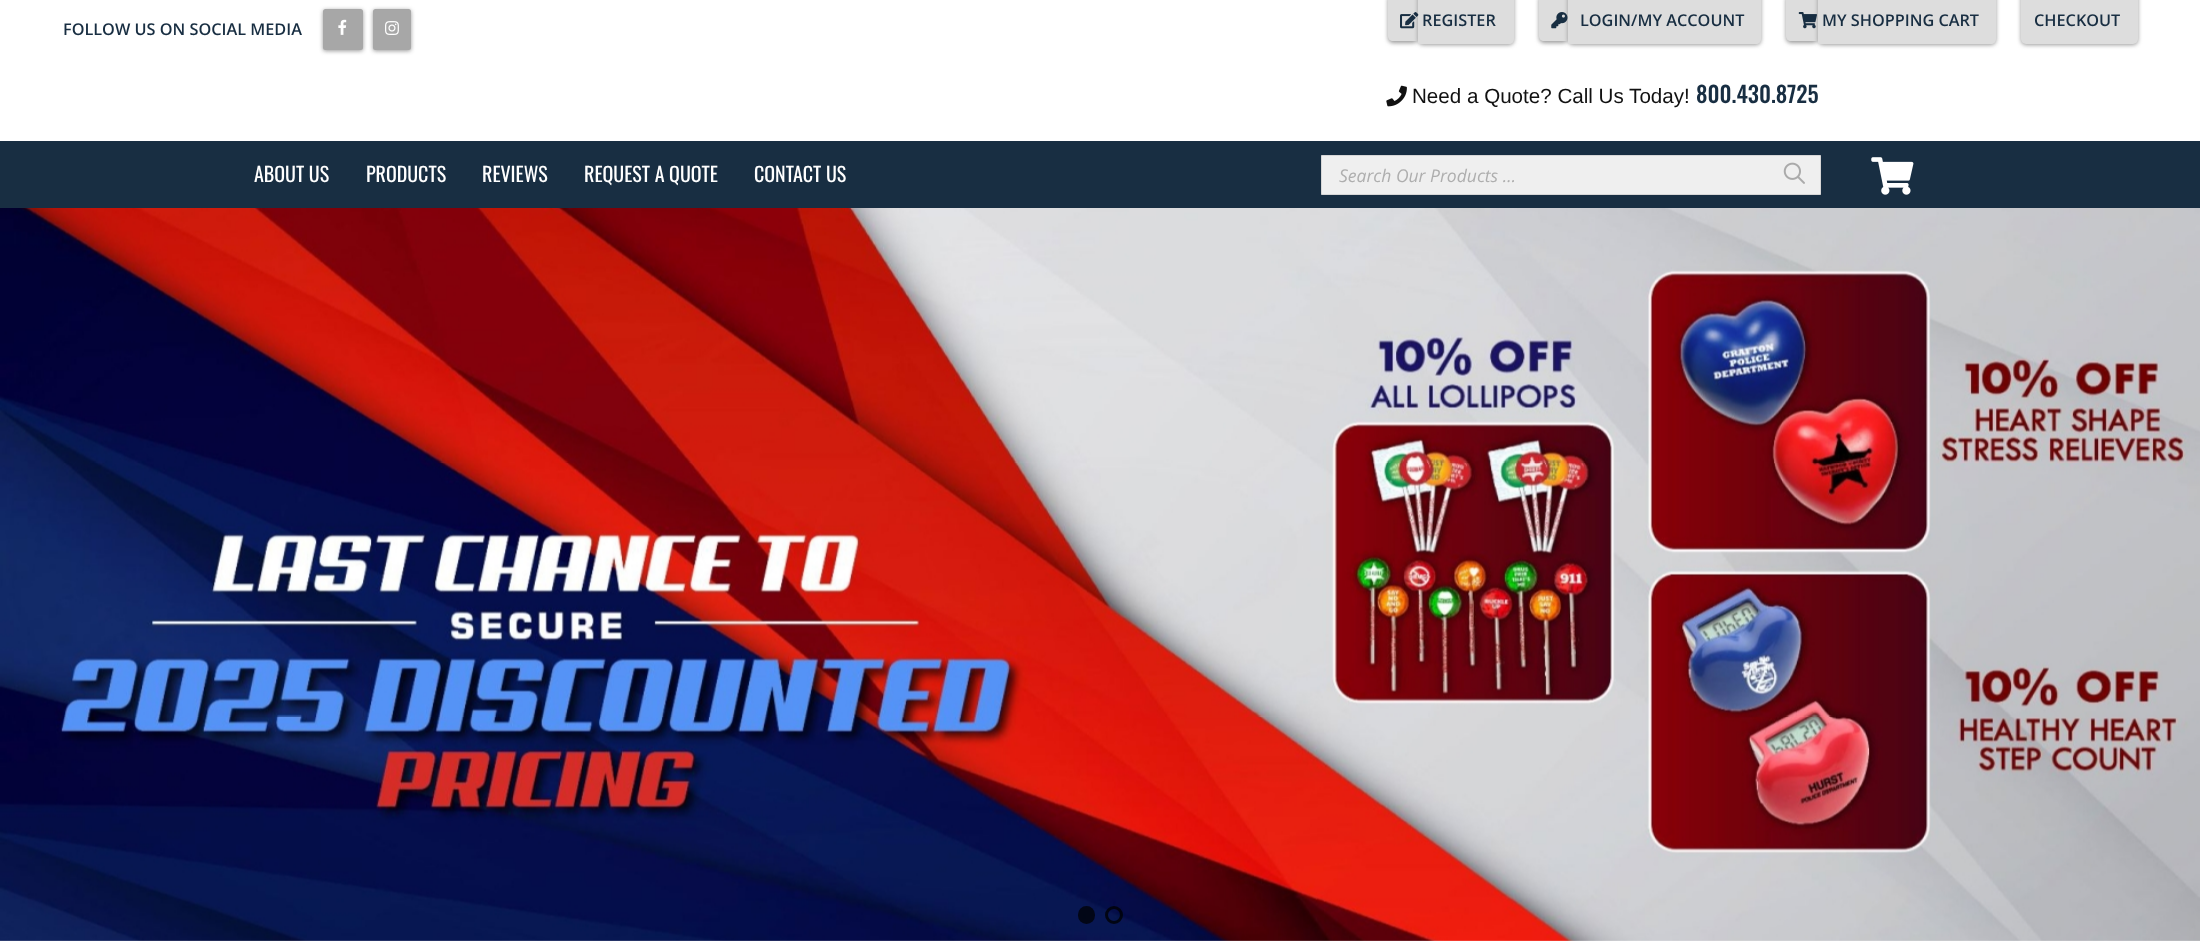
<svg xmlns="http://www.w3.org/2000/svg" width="2200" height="941">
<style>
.a{font:600 16.25px Open Sans;fill:#182e42}
.b{font:20.6px Liberation Sans;fill:#111}
.c{font:500 22.5px Oswald;fill:#182e42}
.d{font:20px Oswald;fill:#fff}
.e{font:italic 17.5px Open Sans;fill:#aeaeae}
</style>
<rect width="100%" height="100%" fill="#fff"/>
<rect fill="#999" filter="blur(2px)" x="1388" y="-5" width="30" height="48" rx="5"/>
<path fill="#ddd" d="M1393-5h25v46h-25c-3 0-5-2-5-5v-36c0-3 2-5 5-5z"/>
<rect fill="#999" filter="blur(2px)" x="1418" y="-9" width="96" height="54" rx="5"/>
<path fill="#ddd" d="M1418-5h91c3 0 5 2 5 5v39c0 3-2 5-5 5h-91z"/>
<image href="1.png" x="1400" y="12" width="19" height="17"/>
<rect fill="#999" filter="blur(2px)" x="1539" y="-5" width="29" height="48" rx="5"/>
<path fill="#ddd" d="M1544-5h24v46h-24c-3 0-5-2-5-5v-36c0-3 2-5 5-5z"/>
<rect fill="#999" filter="blur(2px)" x="1568" y="-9" width="193" height="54" rx="5"/>
<path fill="#ddd" d="M1568-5h188c3 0 5 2 5 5v39c0 3-2 5-5 5h-188z"/>
<image href="2.png" x="1551" y="12" width="17" height="17"/>
<rect fill="#999" filter="blur(2px)" x="1786" y="-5" width="32" height="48" rx="5"/>
<path fill="#ddd" d="M1791-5h27v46h-27c-3 0-5-2-5-5v-36c0-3 2-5 5-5z"/>
<rect fill="#999" filter="blur(2px)" x="1818" y="-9" width="178" height="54" rx="5"/>
<path fill="#ddd" d="M1818-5h173c3 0 5 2 5 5v39c0 3-2 5-5 5h-173z"/>
<image href="3.png" x="1798" y="12" width="19" height="17"/>
<rect fill="#999" filter="blur(2px)" x="2021" y="-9" width="117" height="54" rx="5"/>
<rect fill="#ddd" x="2021" y="-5" width="117" height="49" rx="5"/>
<rect fill="#999" filter="blur(2px)" x="323" y="10" width="40" height="41" rx="2.5"/>
<rect fill="#a7a7a7" x="323" y="9" width="40" height="41" rx="2.5"/>
<image href="4.png" x="338" y="19" width="9" height="16"/>
<rect fill="#999" filter="blur(2px)" x="373" y="10" width="38" height="41" rx="2.5"/>
<rect fill="#a7a7a7" x="373" y="9" width="38" height="41" rx="2.5"/>
<image href="5.png" x="385" y="21" width="14" height="14"/>
<image href="6.png" x="1386" y="85" width="21" height="22"/>
<path fill="#182e42" d="M0 141h2200v67H0z"/>
<path fill="#efefef" stroke="#d6d6d6" d="M1321.5 155.5h499v39H1321.5z"/>
<image href="7.png" x="1783" y="162" width="22" height="22"/>
<image href="8.png" x="1871" y="157" width="43" height="38"/>
<image href="9.png" x="0" y="208" width="2200" height="733"/>
<rect fill="#000000ba" x="1078" y="906" width="17" height="18" rx="8.5"/>
<circle fill="none" stroke="#000000c2" stroke-width="3" cx="1114" cy="915" r="7.5"/>
<text class="a" x="1422" y="26">REGISTER</text>
<text class="a" x="1580" y="26">LOGIN/MY ACCOUNT</text>
<text class="a" x="1822" y="26">MY SHOPPING CART</text>
<text class="a" x="2034" y="26">CHECKOUT</text>
<text class="a" x="63" y="35">FOLLOW US ON SOCIAL MEDIA</text>
<text class="b" x="1412" y="103">Need a Quote? Call Us Today!</text>
<text class="c" x="1696" y="103">800.430.8725</text>
<text class="d" x="254" y="182">ABOUT US</text>
<text class="d" x="366" y="182">PRODUCTS</text>
<text class="d" x="482" y="182">REVIEWS</text>
<text class="d" x="584" y="182">REQUEST A QUOTE</text>
<text class="d" x="754" y="182">CONTACT US</text>
<text class="e" x="1339" y="182">Search Our Products …</text>
</svg>
